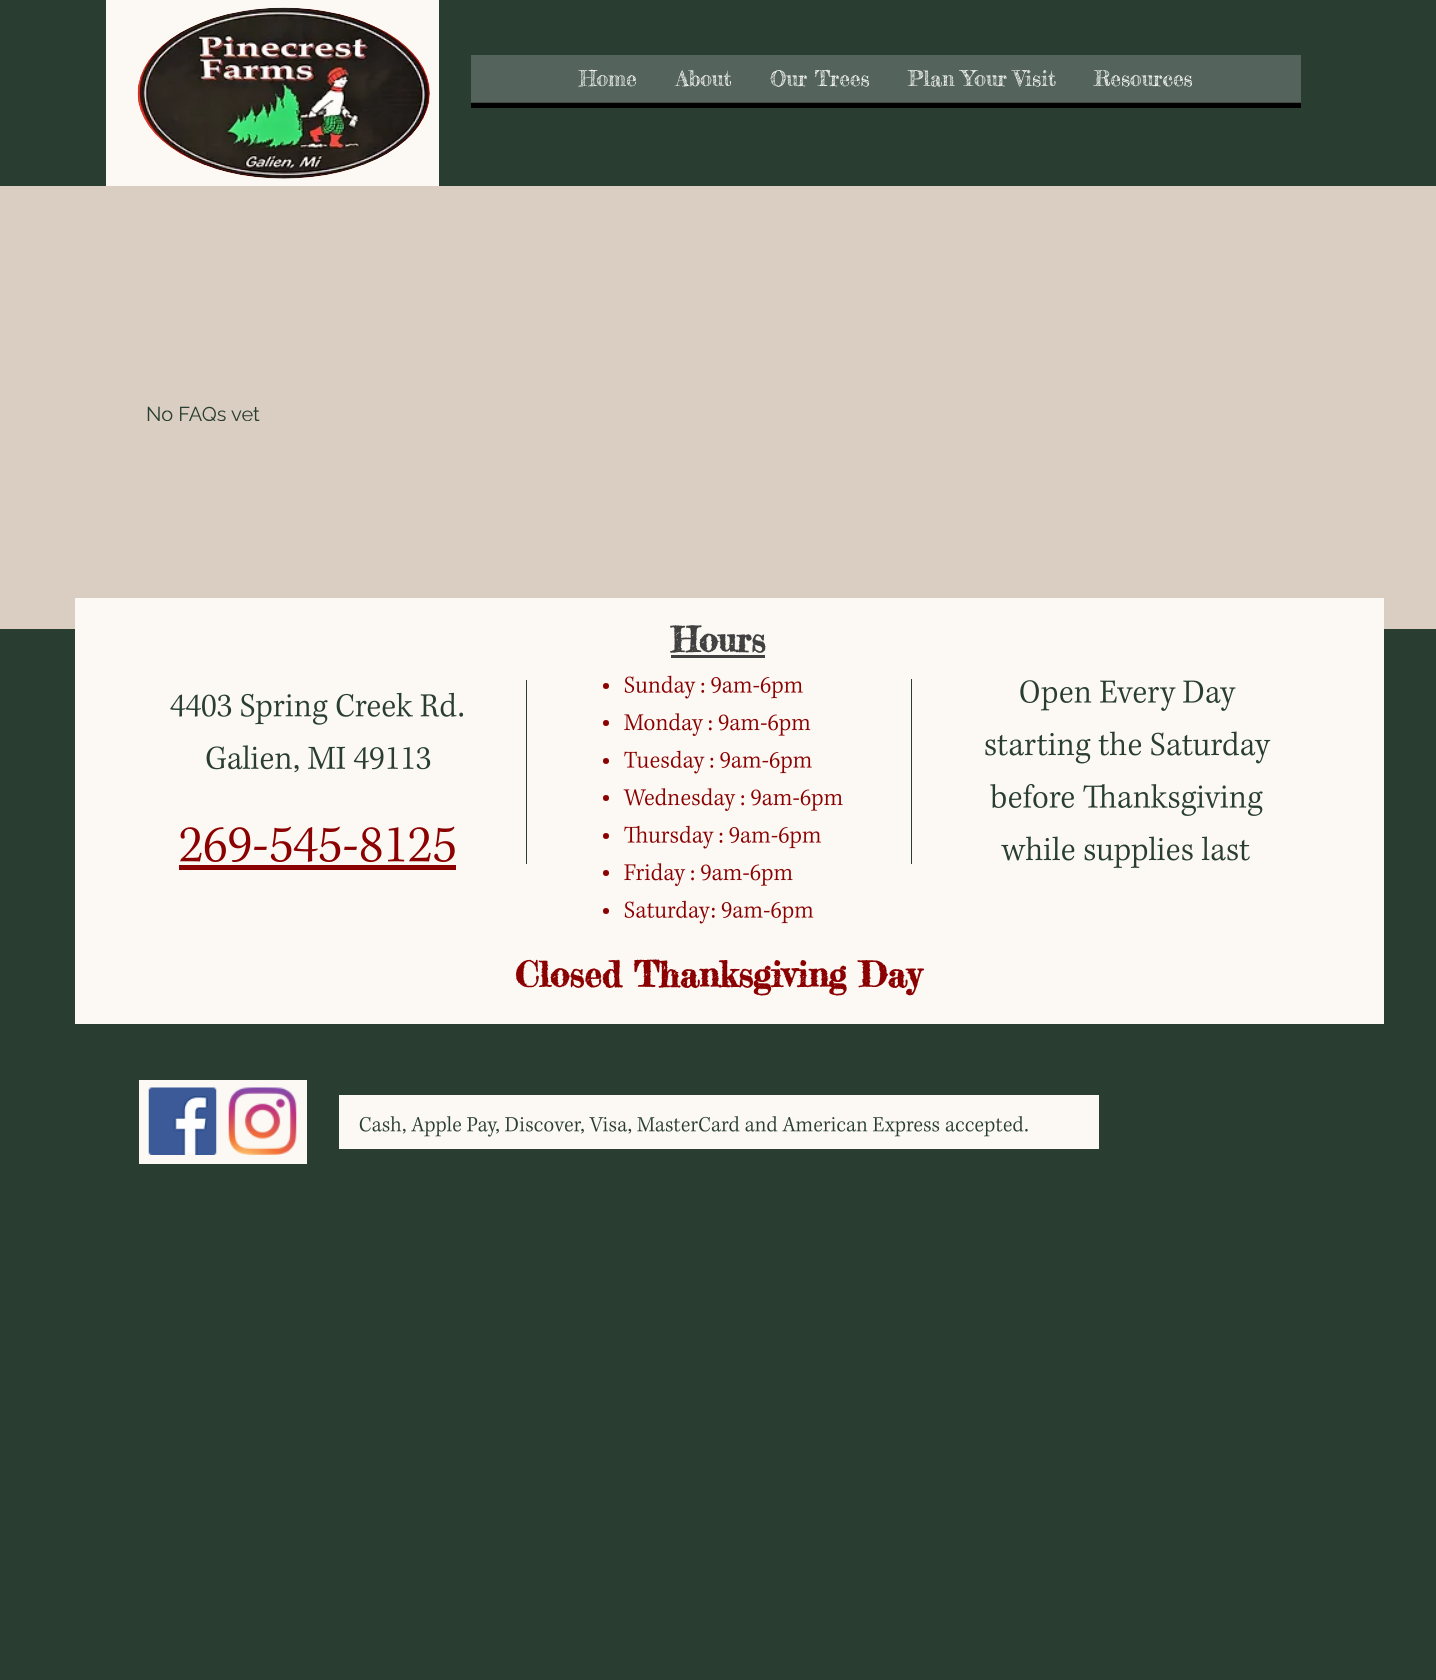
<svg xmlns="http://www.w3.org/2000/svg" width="1436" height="1680">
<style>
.a{font:21.25px Fredericka the Great;fill:#fff}
.b{font:20px Raleway;fill:#293e31}
.c{font:bold 34px Fredericka the Great;fill:#414141}
.d{font:bold 35px Fredericka the Great;fill:#8b0000}
</style>
<rect width="100%" height="100%" fill="#dacec2"/>
<path fill="#293e31" d="M0 0h1436v186H0z"/>
<path fill="#fcf9f4" d="M106 0h333v186H106z"/>
<image href="1.png" x="137" y="7" width="293" height="172"/>
<path fill="#000" d="M471 60v48h830v-6h-830z"/>
<path fill="#75837d91" d="M471 55h830v48H471z"/>
<path fill="#293e31" d="M0 629h1436v1051H0z"/>
<path fill="#fcf9f4" d="M75 598h1309v426H75z"/>
<path fill="#414141" d="M671 655h94v3H671z"/>
<circle fill="#8b0000" cx="606" cy="686" r="3"/>
<image href="2.png" x="624" y="675" width="179" height="24"/>
<circle fill="#8b0000" cx="606" cy="723" r="3"/>
<image href="3.png" x="624" y="713" width="187" height="23"/>
<circle fill="#8b0000" cx="606" cy="761" r="3"/>
<image href="4.png" x="624" y="750" width="188" height="24"/>
<circle fill="#8b0000" cx="606" cy="798" r="3"/>
<image href="5.png" x="623" y="788" width="220" height="23"/>
<circle fill="#8b0000" cx="606" cy="836" r="3"/>
<image href="6.png" x="624" y="825" width="197" height="24"/>
<circle fill="#8b0000" cx="606" cy="873" r="3"/>
<image href="7.png" x="624" y="863" width="169" height="23"/>
<circle fill="#8b0000" cx="606" cy="911" r="3"/>
<image href="8.png" x="624" y="900" width="190" height="24"/>
<image href="9.png" x="170" y="692" width="294" height="33"/>
<image href="10.png" x="206" y="745" width="225" height="28"/>
<path fill="#293e31" d="M526 680h1v184H526z"/>
<path fill="#293e31" d="M911 679h1v185H911z"/>
<image href="11.png" x="1020" y="680" width="216" height="31"/>
<image href="12.png" x="985" y="731" width="286" height="33"/>
<image href="13.png" x="990" y="783" width="273" height="33"/>
<image href="14.png" x="1001" y="836" width="249" height="32"/>
<image href="15.png" x="180" y="826" width="275" height="37"/>
<path fill="#8b0000" d="M179 865h277v5H179z"/>
<path fill="#fcf9f4" d="M139 1080h168v84H139z"/>
<image href="16.png" x="148" y="1087" width="69" height="68"/>
<image href="17.png" x="228" y="1087" width="69" height="68"/>
<path fill="#fcf9f4" d="M339 1095h760v54H339z"/>
<image href="18.png" x="359" y="1116" width="669" height="21"/>
<text class="a" x="579" y="86">Home</text>
<text class="a" x="676" y="86">About</text>
<text class="a" x="770" y="86">Our Trees</text>
<text class="a" x="908" y="86">Plan Your Visit</text>
<text class="a" x="1094" y="86">Resources</text>
<text class="b" x="146" y="421">No FAQs yet</text>
<path fill="#dacec2" d="M165 421h93v5H165z"/>
<text class="c" x="671" y="652">Hours</text>
<text class="d" x="515" y="987">Closed Thanksgiving Day</text>
</svg>
